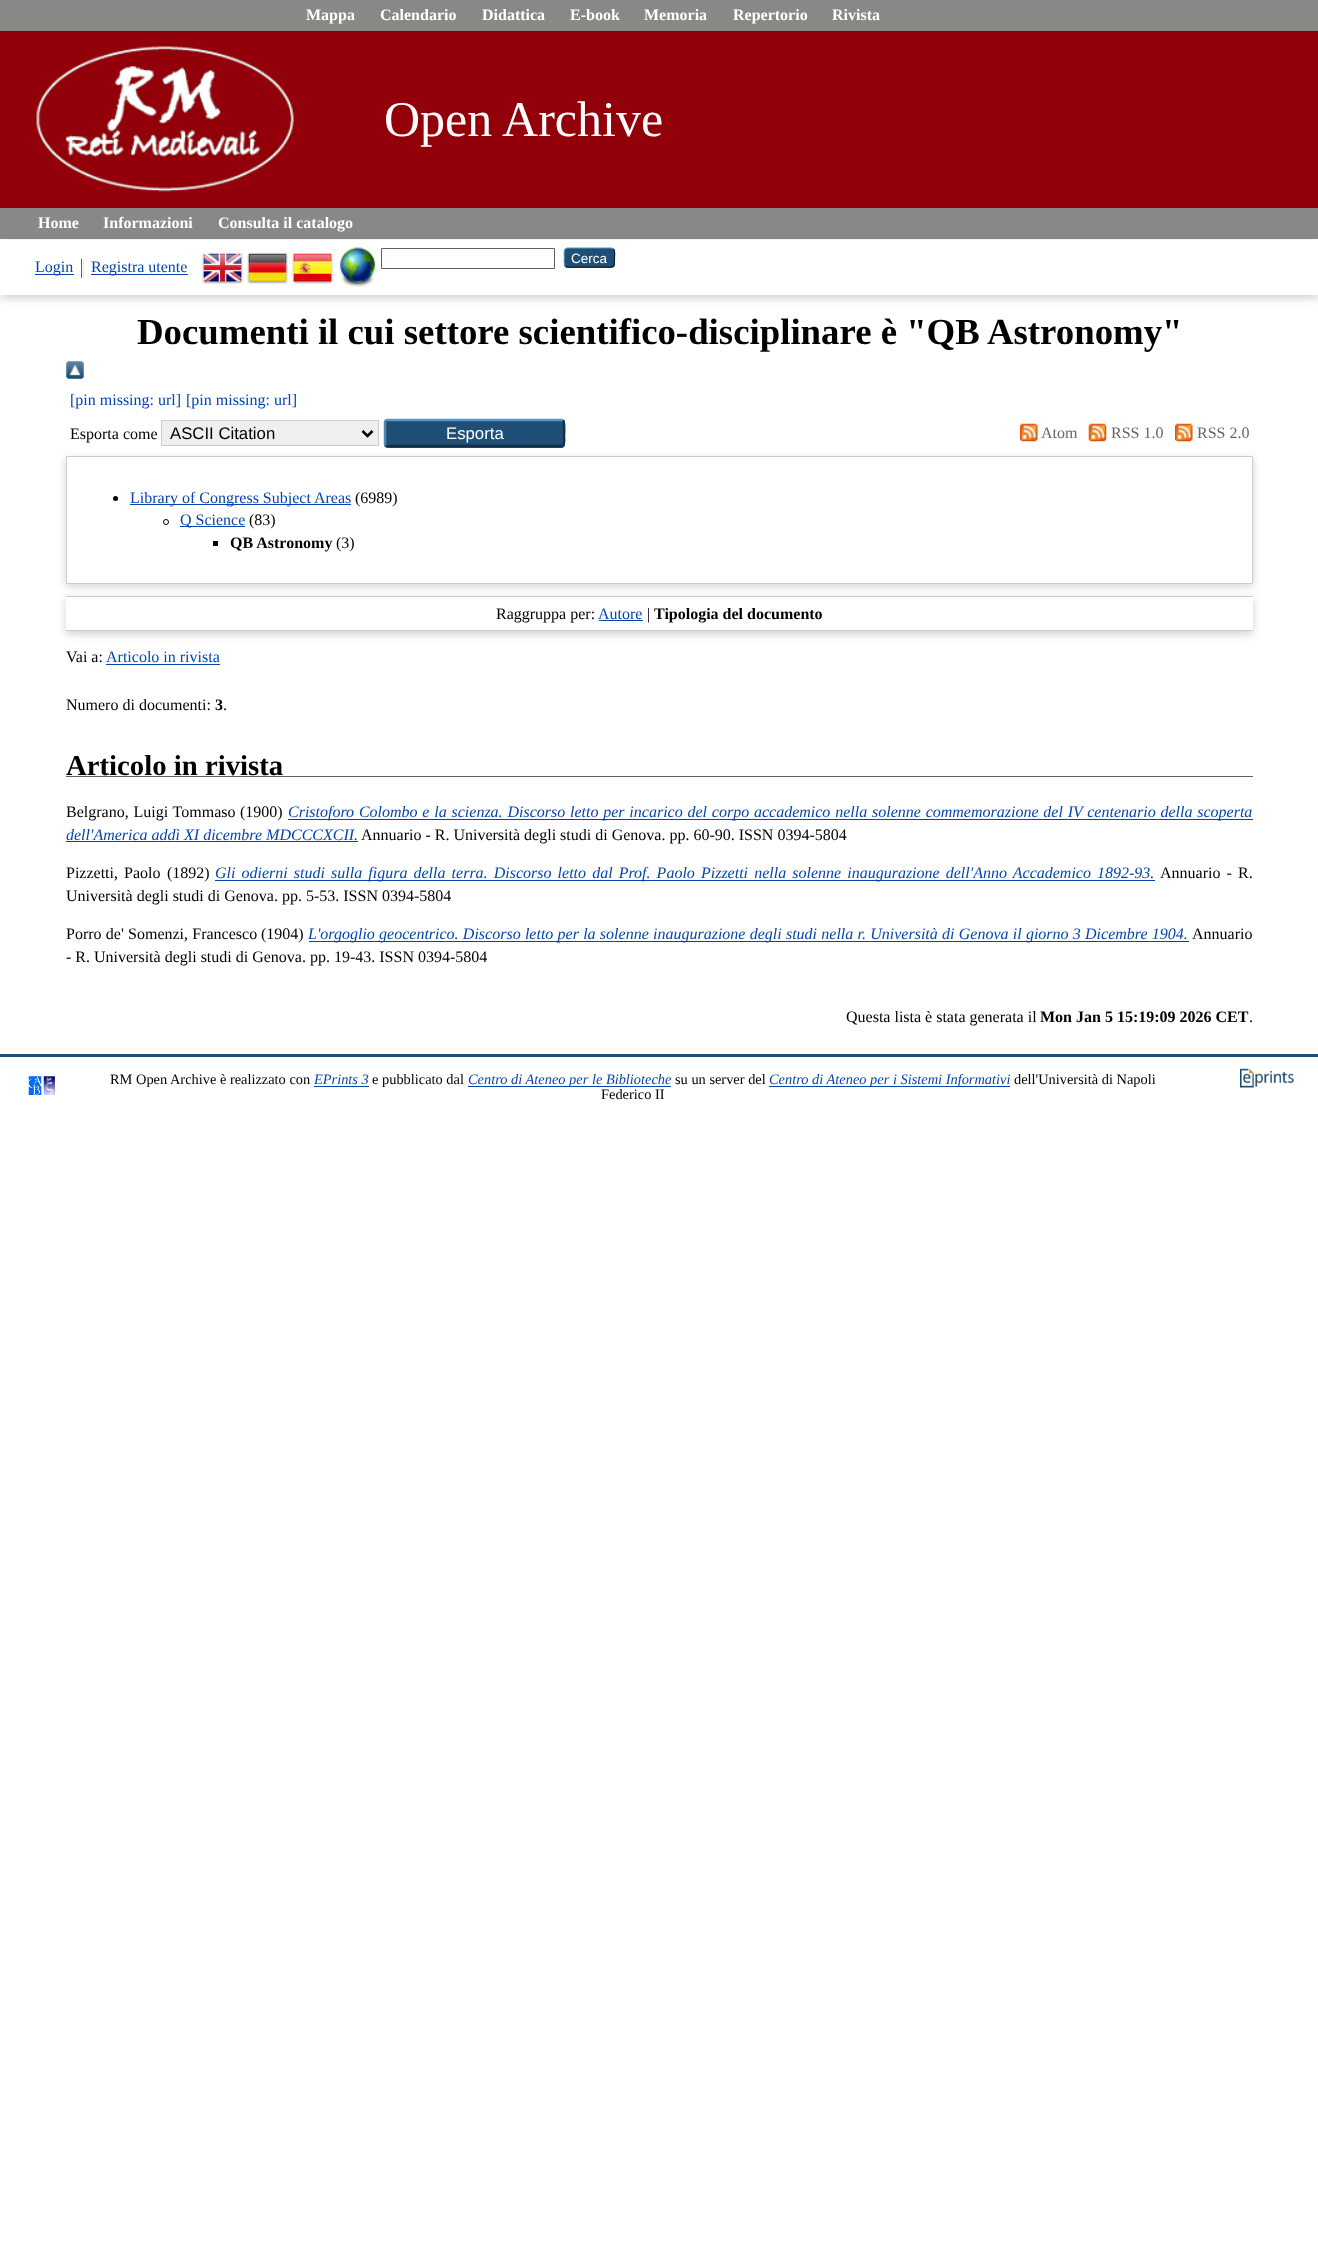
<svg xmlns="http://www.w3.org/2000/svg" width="1318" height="2243">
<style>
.a{font:bold 16px Liberation Serif;fill:#fff}
.b{font:50px Liberation Serif;fill:#fff}
.c{font:13.5px Liberation Sans;fill:#fff}
.d{font:16px Liberation Serif;fill:#0645ad}
.e{font:bold 36.8px Liberation Serif;fill:#000}
.f{font:16px Liberation Serif;fill:#000}
.g{font:16.75px Liberation Sans;fill:#000}
.h{font:16.75px Liberation Sans;fill:#fff}
.i{font:16px Liberation Serif;fill:#666}
.j{font:bold 16px Liberation Serif;fill:#000}
.k{font:bold 28.75px Liberation Serif;fill:#000}
.l{font:italic 16px Liberation Serif;fill:#0645ad}
.m{font:14.4px Liberation Serif;fill:#000}
.n{font:italic 14.4px Liberation Serif;fill:#0645ad}
</style>
<rect width="100%" height="100%" fill="#fff"/>
<path fill="#92000a" d="M0 31h1318v177H0z"/>
<path fill="#888887" d="M0 0h1318v31H0z"/>
<image href="1.png" x="36" y="46" width="258" height="146"/>
<path fill="#888887" d="M0 208h1318v31H0z"/>
<path fill="#6464644d" filter="blur(4px)" d="M0 243h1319v55H0z"/>
<path fill="#fff" d="M0 240h1318v55H0z"/>
<image href="2.png" x="202" y="252" width="41" height="32"/>
<image href="3.png" x="247" y="252" width="41" height="32"/>
<image href="4.png" x="292" y="252" width="41" height="32"/>
<image href="5.png" x="339" y="247" width="37" height="40"/>
<path fill="none" stroke="#606060" d="M381.5 248.5h173v20H381.5z"/>
<rect fill="#1f4f76" x="564" y="248" width="51" height="20" rx="4"/>
<path fill="none" stroke="#5b97c7" stroke-width="1.2" d="M565.5 249l1.5-1h44.5l2 1"/>
<path fill="none" stroke="#0d2131" stroke-width="1.2" d="M613.5 249c2 2 1 6 1 8.5c0 10.5 .5 9.5-10.5 9.5h-29c-1 0-7.5 1-9.5-1"/>
<path fill="none" stroke="#5287b3" stroke-width="1.2" d="M565.5 266c-2-2-1-6.5-1-8.5c0-2-1-6.5 1-8.5"/>
<path fill="#606060" d="M81 259h1v19H81z"/>
<path fill="#0645ad" d="M35 274h39v1H35z"/>
<path fill="#e8e8e8" d="M83 259h1v19H83z"/>
<path fill="#0645ad" d="M91 274h97v1H91z"/>
<image href="6.png" x="66" y="361" width="18" height="18"/>
<path fill="#efefef" stroke="#ccc" d="M161.5 420.5h217v25H161.5z"/>
<path fill="none" stroke="#000" stroke-width="2.5" d="M362.5 431l5 5l5-5"/>
<path fill="#6464644d" filter="blur(4px)" d="M66 459h1187v127H66z"/>
<rect fill="#1f4f76" x="384" y="419" width="181" height="29" rx="4"/>
<path fill="none" stroke="#5b97c7" stroke-width="2.5" d="M385.5 420.5l2-.5h173.5l2 .5"/>
<path fill="none" stroke="#13324a" stroke-width="2.5" d="M563 420.5c2 2 1 13.5 1 16c0 2 1 8.5-2 9.5h-174.5l-2-.5"/>
<path fill="none" stroke="#5287b3" stroke-width="2.5" d="M385.5 445.5c0-.5-.5-1-.5-1.5v-21.5c0-.5 .5-1.5 .5-2"/>
<image href="7.png" x="1020" y="423" width="18" height="19"/>
<image href="8.png" x="1088" y="423" width="19" height="19"/>
<image href="9.png" x="1175" y="423" width="18" height="19"/>
<path fill="#fff" stroke="#ccc" d="M66.5 456.5h1186v127H66.5z"/>
<circle fill="#000" cx="115.5" cy="498.5" r="2.5"/>
<path fill="#0645ad" d="M130 504h221v1H130z"/>
<circle fill="none" stroke="#000" cx="166" cy="522" r="2.5"/>
<path fill="#0645ad" d="M180 526h65v1H180z"/>
<path fill="#000" d="M213 541h5v5H213z"/>
<path fill="#6464644d" filter="blur(4px)" d="M66 599h1187v35H66z"/>
<path fill="#fff" d="M66 597h1187v33H66z"/>
<path fill="#ccc" d="M66 596h1187v1H66z"/>
<path fill="#ccc" d="M66 630h1187v1H66z"/>
<path fill="#0645ad" d="M599 620h44v1H599z"/>
<path fill="#0645ad" d="M106 664h114v1H106z"/>
<path fill="#606060" d="M66 776h1187v1H66z"/>
<path fill="#0645ad" d="M288 819h965v1H288z"/>
<path fill="#0645ad" d="M66 841h292v1H66z"/>
<path fill="#0645ad" d="M215 880h940v1H215z"/>
<path fill="#0645ad" d="M309 941h880v1H309z"/>
<path fill="#204f76" d="M0 1054h1318v3H0z"/>
<image href="10.png" x="28" y="1076" width="14" height="19"/>
<image href="11.png" x="43" y="1076" width="12" height="19"/>
<path fill="#0645ad" d="M314 1086h55v1H314z"/>
<path fill="#0645ad" d="M468 1086h203v1H468z"/>
<path fill="#0645ad" d="M769 1086h241v1H769z"/>
<image href="12.png" x="1240" y="1068" width="54" height="20"/>
<text class="a" x="306" y="20">Mappa</text>
<text class="a" x="380" y="20">Calendario</text>
<text class="a" x="482" y="20">Didattica</text>
<text class="a" x="570" y="20">E-book</text>
<text class="a" x="644" y="20">Memoria</text>
<text class="a" x="733" y="20">Repertorio</text>
<text class="a" x="832" y="20">Rivista</text>
<text class="b" x="384" y="136">Open Archive</text>
<text class="a" x="38" y="228">Home</text>
<text class="a" x="103" y="228">Informazioni</text>
<text class="a" x="218" y="228">Consulta il catalogo</text>
<text class="c" x="571" y="263">Cerca</text>
<text class="d" x="35" y="272">Login</text>
<text class="d" x="91" y="272">Registra utente</text>
<text class="e" x="137" y="344">Documenti il cui settore scientifico-disciplinare è "QB Astronomy"</text>
<text class="d" x="70" y="405">[pin missing: url]</text>
<text class="d" x="186" y="405">[pin missing: url]</text>
<text class="f" x="70" y="439">Esporta come</text>
<text class="g" x="170" y="439">ASCII Citation</text>
<text class="h" x="446" y="439">Esporta</text>
<text class="i" x="1041" y="438">Atom</text>
<text class="i" x="1111" y="438">RSS 1.0</text>
<text class="i" x="1197" y="438">RSS 2.0</text>
<text class="d" x="130" y="503">Library of Congress Subject Areas</text>
<text class="f" x="355" y="503">(6989)</text>
<text class="d" x="180" y="525">Q Science</text>
<text class="f" x="249" y="525">(83)</text>
<text class="j" x="230" y="548">QB Astronomy</text>
<text class="f" x="336" y="548">(3)</text>
<text class="f" x="496" y="619">Raggruppa per:</text>
<text class="d" x="598" y="619">Autore</text>
<text class="f" x="647" y="619">|</text>
<text class="j" x="654" y="619">Tipologia del documento</text>
<text class="f" x="66" y="662">Vai a:</text>
<text class="d" x="106" y="662">Articolo in rivista</text>
<text class="f" x="66" y="710">Numero di documenti:</text>
<text class="j" x="215" y="710">3</text>
<text class="f" x="223" y="710">.</text>
<text class="k" x="66" y="775">Articolo in rivista</text>
<text class="f" x="66" y="817" word-spacing="0.8">Belgrano, Luigi Tommaso</text>
<text class="f" x="240" y="817">(1900)</text>
<text class="l" x="288" y="817" word-spacing="0.8">Cristoforo Colombo e la scienza. Discorso letto per incarico del corpo accademico nella solenne commemorazione del IV centenario della scoperta</text>
<text class="l" x="66" y="840">dell'America addì XI dicembre MDCCCXCII.</text>
<text class="f" x="361" y="840">Annuario - R. Università degli studi di Genova. pp. 60-90. ISSN 0394-5804</text>
<text class="f" x="66" y="878" word-spacing="2.1">Pizzetti, Paolo</text>
<text class="f" x="167" y="878">(1892)</text>
<text class="l" x="215" y="878" word-spacing="2.1">Gli odierni studi sulla figura della terra. Discorso letto dal Prof. Paolo Pizzetti nella solenne inaugurazione dell'Anno Accademico 1892-93.</text>
<text class="f" x="1160" y="878" word-spacing="2.1">Annuario - R.</text>
<text class="f" x="66" y="901">Università degli studi di Genova. pp. 5-53. ISSN 0394-5804</text>
<text class="f" x="66" y="939" word-spacing="0.25">Porro de' Somenzi, Francesco</text>
<text class="f" x="261" y="939">(1904)</text>
<text class="l" x="308" y="939" word-spacing="0.25">L'orgoglio geocentrico. Discorso letto per la solenne inaugurazione degli studi nella r. Università di Genova il giorno 3 Dicembre 1904.</text>
<text class="f" x="1192" y="939">Annuario</text>
<text class="f" x="66" y="962">- R. Università degli studi di Genova. pp. 19-43. ISSN 0394-5804</text>
<text class="f" x="846" y="1022">Questa lista è stata generata il</text>
<text class="j" x="1040" y="1022">Mon Jan 5 15:19:09 2026 CET</text>
<text class="f" x="1249" y="1022">.</text>
<text class="m" x="110" y="1084">RM Open Archive è realizzato con</text>
<text class="n" x="314" y="1084">EPrints 3</text>
<text class="m" x="372" y="1084">e pubblicato dal</text>
<text class="n" x="468" y="1084">Centro di Ateneo per le Biblioteche</text>
<text class="m" x="675" y="1084">su un server del</text>
<text class="n" x="769" y="1084">Centro di Ateneo per i Sistemi Informativi</text>
<text class="m" x="1014" y="1084">dell'Università di Napoli</text>
<text class="m" x="601" y="1099">Federico II</text>
</svg>
